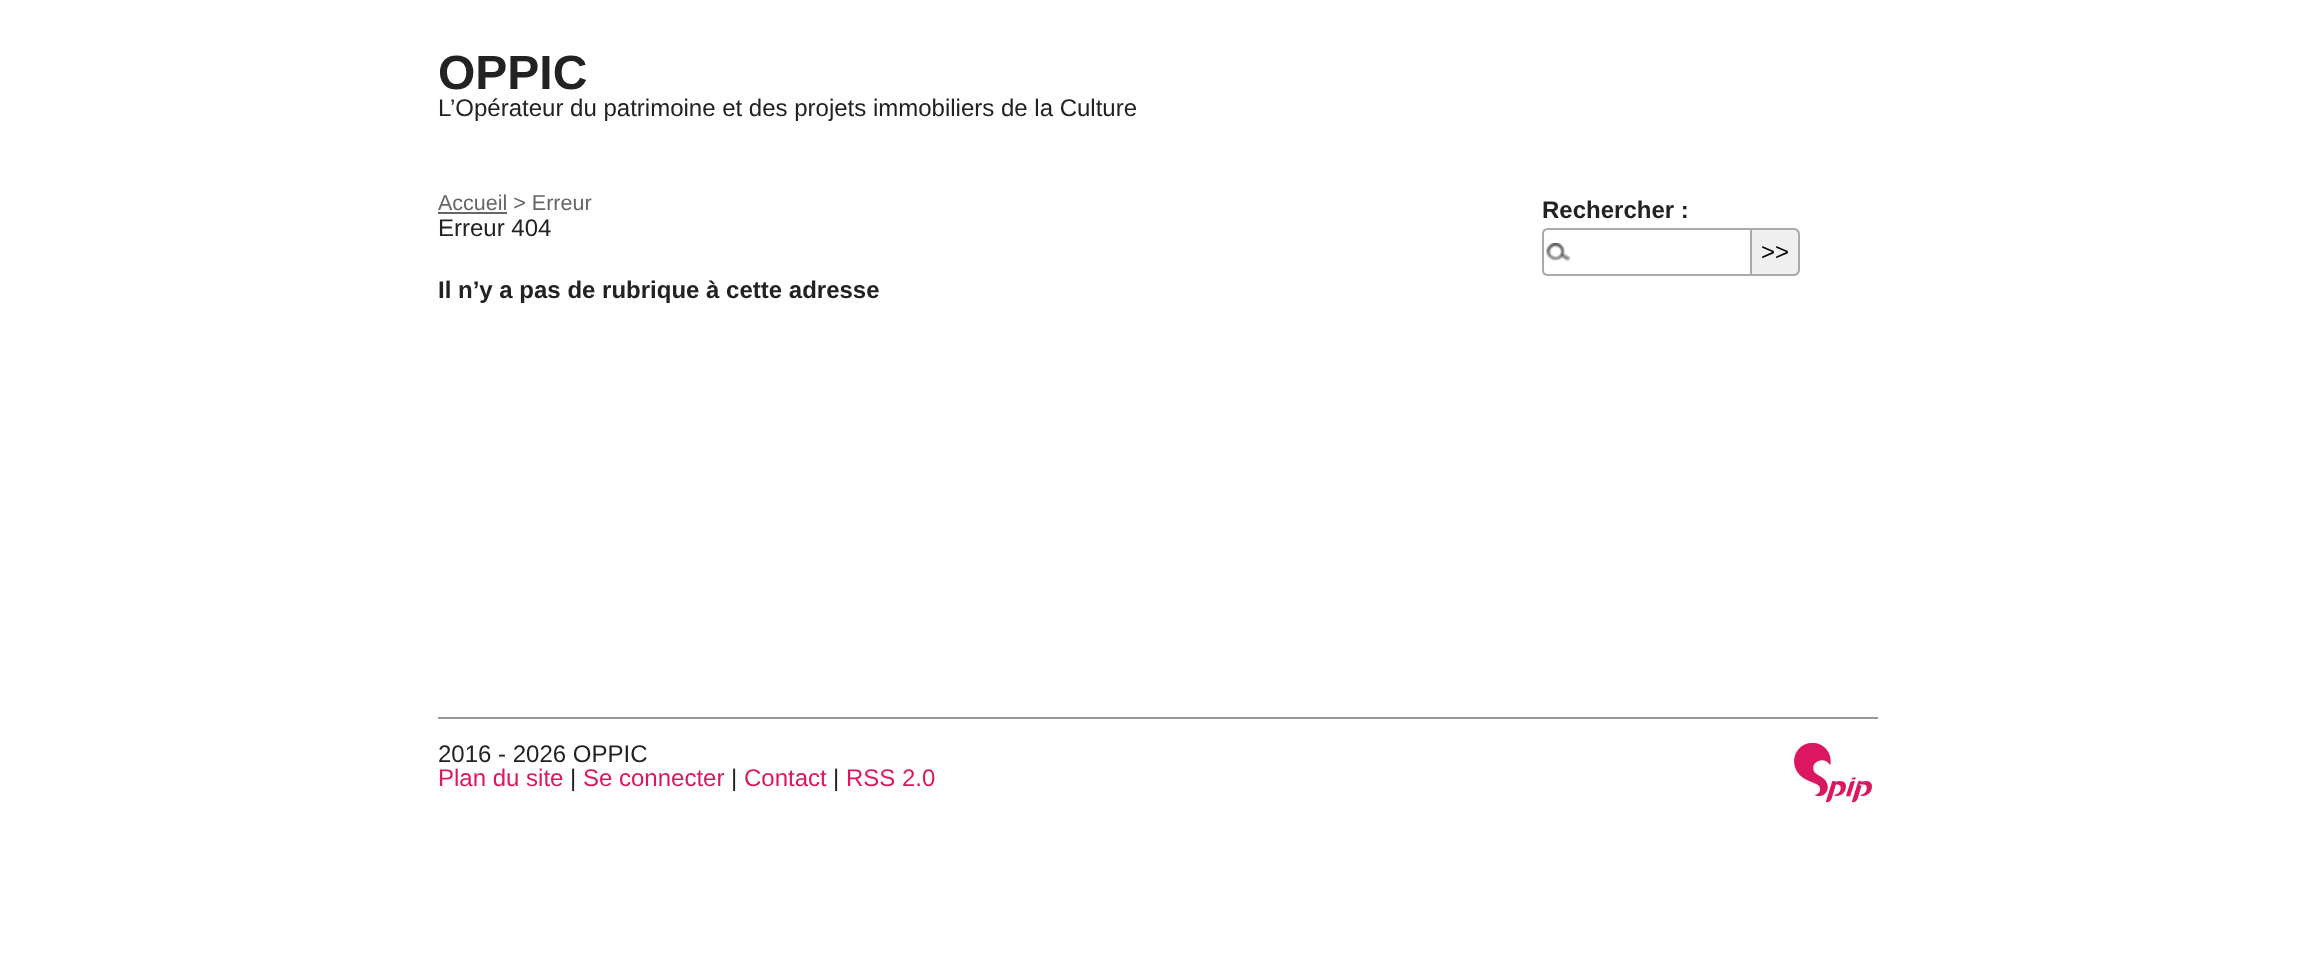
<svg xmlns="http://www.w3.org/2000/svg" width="2315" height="958">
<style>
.a{font:bold 48px Liberation Sans;fill:#222}
.b{font:24px Liberation Sans;fill:#222}
.c{font:21.5px Liberation Sans;fill:#666}
.d{font:bold 24px Liberation Sans;fill:#222}
.e{font:24px Liberation Sans;fill:#000}
.f{font:24px Liberation Sans;fill:#db1762}
</style>
<rect width="100%" height="100%" fill="#fff"/>
<path fill="#666" d="M438 212h69v2H438z"/>
<image href="1.png" x="1546" y="243" width="25" height="18"/>
<path fill="none" stroke="#aaa" stroke-width="2" d="M1548 229h203v46h-203c-3 0-5-2-5-5v-36c0-3 2-5 5-5z"/>
<path fill="#efefef" d="M1752 228h42c3.5 0 6 2.5 6 6v36c0 3.5-2.5 6-6 6h-42z"/>
<path fill="#aaa" fill-rule="evenodd" d="M1752 228h42c3 0 6 3 6 6v36c0 3-3 6-6 6h-42zm0 2h42c2 0 4 2 4 4v36c0 2-2 4-4 4h-42z"/>
<path fill="#999" d="M438 717h1440v2H438z"/>
<image href="2.png" x="1794" y="743" width="78" height="60"/>
<text class="a" x="438" y="89">OPPIC</text>
<text class="b" x="438" y="116">L’Opérateur du patrimoine et des projets immobiliers de la Culture</text>
<text class="c" x="438" y="210">Accueil &gt; Erreur</text>
<text class="b" x="438" y="236">Erreur 404</text>
<text class="d" x="438" y="298">Il n’y a pas de rubrique à cette adresse</text>
<text class="d" x="1542" y="218">Rechercher :</text>
<text class="e" x="1761" y="260">&gt;&gt;</text>
<text class="b" x="438" y="762">2016 - 2026 OPPIC</text>
<text class="f" x="438" y="786">Plan du site</text>
<text class="b" x="570" y="786">|</text>
<text class="f" x="583" y="786">Se connecter</text>
<text class="b" x="731" y="786">|</text>
<text class="f" x="744" y="786">Contact</text>
<text class="b" x="833" y="786">|</text>
<text class="f" x="846" y="786">RSS 2.0</text>
</svg>
